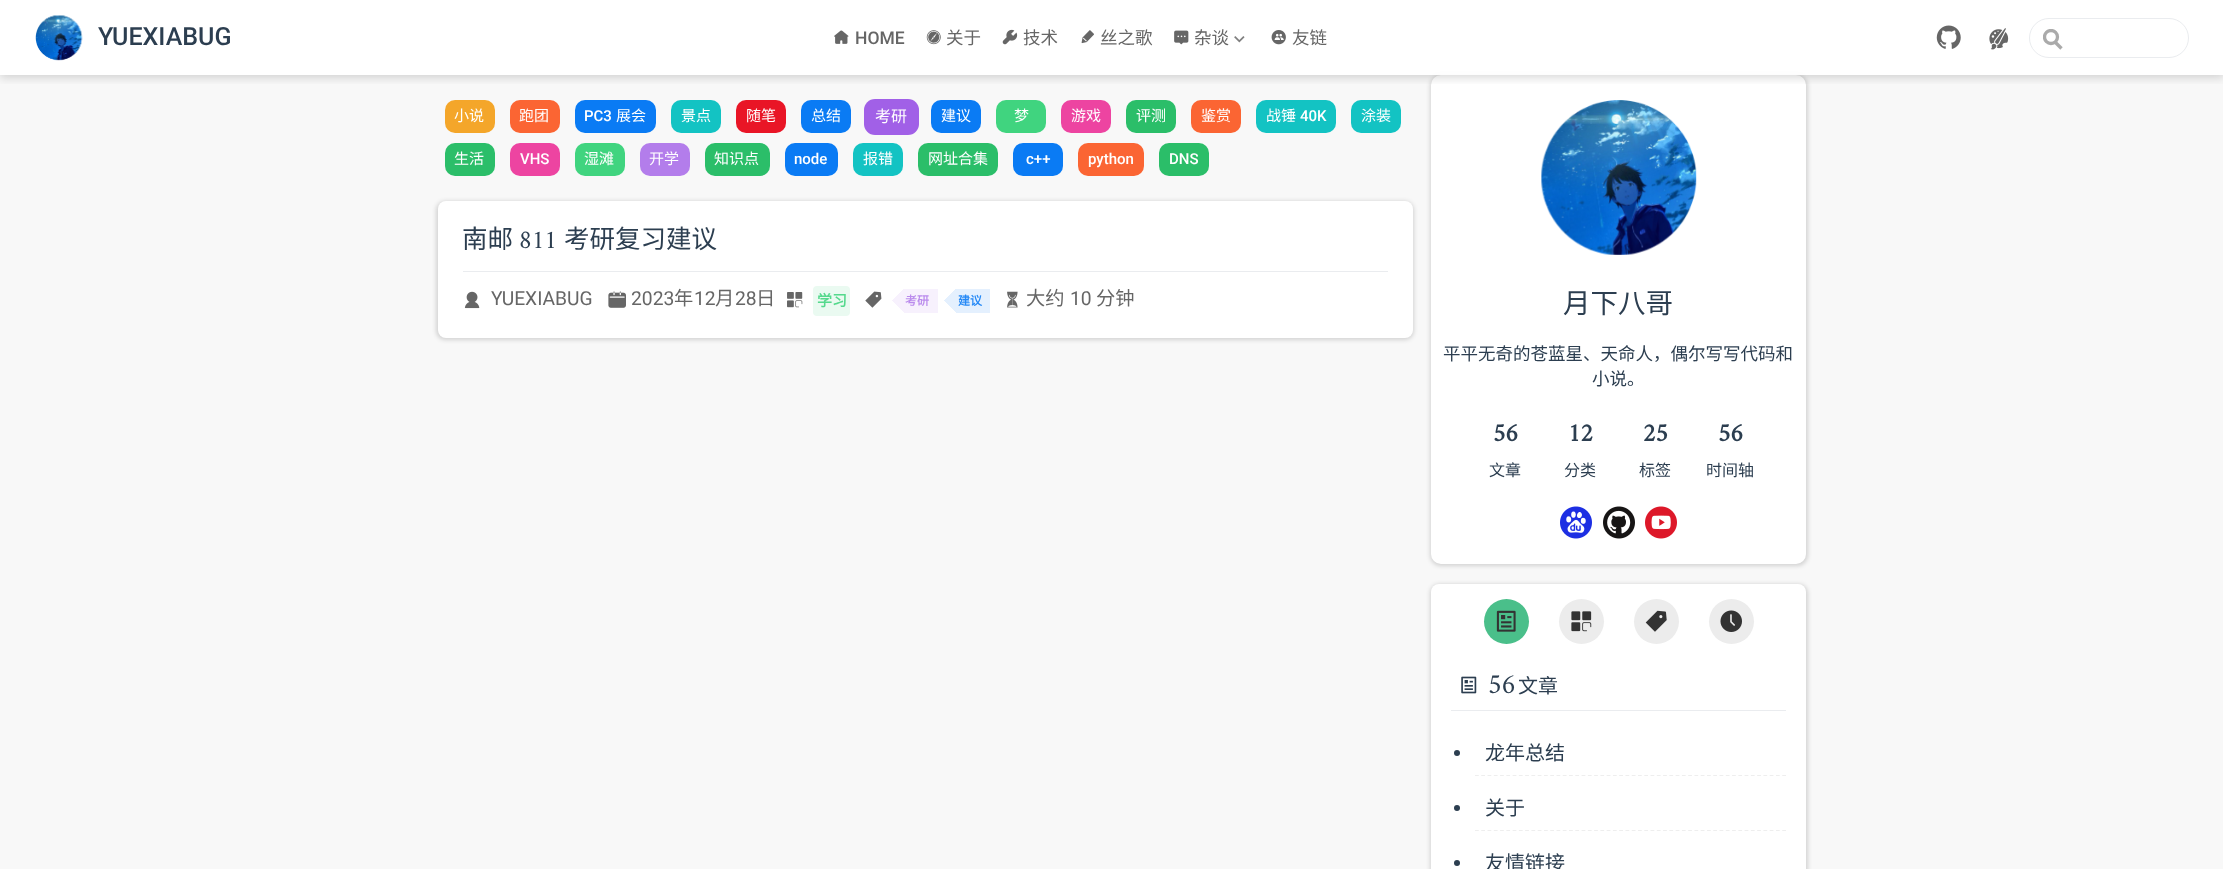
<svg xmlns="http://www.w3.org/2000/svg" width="2223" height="869">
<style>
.a{font:500 25px Roboto;fill:#2c3e50}
.b{font:500 17.5px Roboto;fill:#666}
.c{font:17.5px Noto Sans CJK SC;fill:#666}
.d{font:15px Noto Sans CJK SC;fill:#fff}
.e{font:500 15px Roboto;fill:#fff}
.f{font:16px Noto Sans CJK SC;fill:#fff}
.g{font:25.5px Noto Sans CJK SC;fill:#2c3e50}
.h{font:25.5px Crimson;fill:#2c3e50}
.i{font:19.25px Roboto;fill:#666}
.j{font:19.25px Noto Sans CJK SC;fill:#666}
.k{font:bold 15px Noto Sans CJK SC;fill:#55d98d}
.l{font:bold 12px Noto Sans CJK SC;fill:#bb8ced}
.m{font:bold 12px Noto Sans CJK SC;fill:#2589f6}
.n{font:27.5px Noto Sans CJK SC;fill:#2c3e50}
.o{font:17.5px Noto Sans CJK SC;fill:#2c3e50}
.p{font:bold 25px Crimson;fill:#2c3e50}
.q{font:16px Noto Sans CJK SC;fill:#2c3e50}
.r{font:27.5px Crimson;fill:#2c3e50}
.s{font:20px Noto Sans CJK SC;fill:#2c3e50}
</style>
<defs>
<clipPath id="clip1"><path d="M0 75h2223v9H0z"/></clipPath>
<clipPath id="clip2"><path d="M2043 29h20v22H2043z"/></clipPath>
<linearGradient id="g1" gradientUnits="userSpaceOnUse" x1="899" y1="321" x2="929" y2="291"><stop offset="0.22" stop-color="#fff"/><stop offset="0.22" stop-color="#f7f1fd"/></linearGradient>
<linearGradient id="g2" gradientUnits="userSpaceOnUse" x1="899" y1="280" x2="929" y2="310"><stop offset="0.22" stop-color="#f7f1fd" stop-opacity="0"/><stop offset="0.22" stop-color="#f7f1fd"/></linearGradient>
<linearGradient id="g3" gradientUnits="userSpaceOnUse" x1="951" y1="321" x2="981" y2="291"><stop offset="0.22" stop-color="#fff"/><stop offset="0.22" stop-color="#e4f0fe"/></linearGradient>
<linearGradient id="g4" gradientUnits="userSpaceOnUse" x1="951" y1="280" x2="981" y2="310"><stop offset="0.22" stop-color="#e4f0fe" stop-opacity="0"/><stop offset="0.22" stop-color="#e4f0fe"/></linearGradient>
</defs>
<rect width="100%" height="100%" fill="#f8f8f8"/>
<rect fill="#00000026" filter="blur(2px)" x="1430" y="75" width="378" height="491" rx="11"/>
<rect fill="#fff" x="1431" y="75" width="375" height="489" rx="10"/>
<g clip-path="url(#clip1)">
<path fill="#00000026" filter="blur(5px)" d="M0 3h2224v75H0z"/>
</g>
<path fill="#ffffffe6" d="M0 0h2223v75H0z"/>
<image href="1.png" x="35" y="15" width="48" height="46"/>
<image href="2.png" x="834" y="30" width="15" height="14"/>
<image href="3.png" x="926" y="30" width="15" height="15"/>
<image href="4.png" x="1002" y="29" width="16" height="16"/>
<image href="5.png" x="1081" y="30" width="13" height="14"/>
<image href="6.png" x="1174" y="30" width="15" height="15"/>
<image href="7.png" x="1234" y="36" width="11" height="7"/>
<image href="8.png" x="1271" y="30" width="15" height="15"/>
<image href="9.png" x="1936" y="25" width="25" height="24"/>
<image href="10.png" x="1989" y="28" width="20" height="22"/>
<path fill="none" stroke="#aaa" stroke-width="3.3" d="M2061.5 48.5l-7-7"/>
<g clip-path="url(#clip2)">
<circle fill="none" stroke="#aaa" stroke-width="3.3" cx="2051" cy="37" r="6.5"/>
</g>
<rect fill="none" stroke="#eaecef" x="2029.5" y="18.5" width="159" height="39" rx="19.5"/>
<rect fill="#f4a62a" x="445" y="100" width="50" height="33" rx="10"/>
<rect fill="#fb6533" x="510" y="100" width="50" height="33" rx="10"/>
<rect fill="#0a7bf4" x="575" y="100" width="81" height="33" rx="10"/>
<rect fill="#13c3c3" x="671" y="100" width="50" height="33" rx="10"/>
<rect fill="#e91526" x="736" y="100" width="50" height="33" rx="10"/>
<rect fill="#0a7bf4" x="801" y="100" width="50" height="33" rx="10"/>
<rect fill="#a160e7" x="864" y="99" width="55" height="36" rx="11"/>
<rect fill="#0a7bf4" x="931" y="100" width="50" height="33" rx="10"/>
<rect fill="#40d47f" x="996" y="100" width="50" height="33" rx="10"/>
<rect fill="#ed44a1" x="1061" y="100" width="50" height="33" rx="10"/>
<rect fill="#2bbe69" x="1126" y="100" width="50" height="33" rx="10"/>
<rect fill="#fb6533" x="1191" y="100" width="50" height="33" rx="10"/>
<rect fill="#13c3c3" x="1256" y="100" width="80" height="33" rx="10"/>
<rect fill="#13c3c3" x="1351" y="100" width="50" height="33" rx="10"/>
<rect fill="#2bbe69" x="445" y="143" width="50" height="33" rx="10"/>
<rect fill="#ed44a1" x="510" y="143" width="50" height="33" rx="10"/>
<rect fill="#40d47f" x="575" y="143" width="50" height="33" rx="10"/>
<rect fill="#b37deb" x="640" y="143" width="50" height="33" rx="10"/>
<rect fill="#2bbe69" x="705" y="143" width="65" height="33" rx="10"/>
<rect fill="#0a7bf4" x="785" y="143" width="53" height="33" rx="10"/>
<rect fill="#13c3c3" x="853" y="143" width="50" height="33" rx="10"/>
<rect fill="#2bbe69" x="918" y="143" width="80" height="33" rx="10"/>
<rect fill="#0a7bf4" x="1013" y="143" width="50" height="33" rx="10"/>
<rect fill="#fb6533" x="1078" y="143" width="66" height="33" rx="10"/>
<rect fill="#2bbe69" x="1159" y="143" width="50" height="33" rx="10"/>
<rect fill="#00000026" filter="blur(2px)" x="436" y="201" width="978" height="139" rx="9"/>
<rect fill="#fff" x="438" y="201" width="975" height="137" rx="8"/>
<path fill="#eaecef" d="M463 271h925v1H463z"/>
<image href="11.png" x="464" y="291" width="16" height="18"/>
<image href="12.png" x="608" y="291" width="18" height="17"/>
<image href="13.png" x="787" y="292" width="16" height="16"/>
<rect fill="#eafaf1" x="813" y="286" width="37" height="30" rx="4"/>
<image href="14.png" x="865" y="291" width="17" height="17"/>
<path fill="url(#g1)" d="M892 300h46v13H892z"/>
<path fill="url(#g2)" d="M893 289h45v11H893z"/>
<path fill="url(#g3)" d="M944 300h46v13H944z"/>
<path fill="url(#g4)" d="M945 289h45v11H945z"/>
<image href="15.png" x="1007" y="291" width="11" height="17"/>
<image href="16.png" x="1541" y="100" width="156" height="155"/>
<image href="17.png" x="1560" y="506" width="32" height="33"/>
<image href="18.png" x="1603" y="506" width="32" height="33"/>
<image href="19.png" x="1645" y="506" width="32" height="33"/>
<rect fill="#00000026" filter="blur(2px)" x="1430" y="584" width="378" height="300" rx="9"/>
<rect fill="#fff" x="1431" y="584" width="375" height="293" rx="8"/>
<circle fill="#4abf8a" cx="1506.5" cy="621.5" r="22.5"/>
<image href="20.png" x="1496" y="610" width="20" height="22"/>
<circle fill="#ececec" cx="1581.5" cy="621.5" r="22.5"/>
<image href="21.png" x="1571" y="611" width="21" height="21"/>
<circle fill="#ececec" cx="1656.5" cy="621.5" r="22.5"/>
<image href="22.png" x="1645" y="610" width="22" height="22"/>
<circle fill="#ececec" cx="1731.5" cy="621.5" r="22.5"/>
<image href="23.png" x="1720" y="610" width="22" height="22"/>
<image href="24.png" x="1461" y="676" width="16" height="18"/>
<path fill="#eaecef" d="M1451 710h335v1H1451z"/>
<path fill="none" stroke="#eee" stroke-width="1.2" stroke-dasharray="3.75 2.52" d="M1475 775.5h311"/>
<circle fill="#2c3e50" cx="1457" cy="753" r="3"/>
<path fill="none" stroke="#eee" stroke-width="1.2" stroke-dasharray="3.75 2.52" d="M1475 830.5h311"/>
<circle fill="#2c3e50" cx="1457" cy="808" r="3"/>
<circle fill="#2c3e50" cx="1457" cy="863" r="3"/>
<text class="a" x="98" y="45">YUEXIABUG</text>
<text class="b" x="855" y="44">HOME</text>
<text class="c" x="946" y="44">关于</text>
<text class="c" x="1023" y="44">技术</text>
<text class="c" x="1100" y="44">丝之歌</text>
<text class="c" x="1194" y="44">杂谈</text>
<text class="c" x="1292" y="44">友链</text>
<text class="d" x="454" y="121">小说</text>
<text class="d" x="519" y="121">跑团</text>
<text class="e" x="584" y="121">PC3</text>
<text class="d" x="616" y="121">展会</text>
<text class="d" x="681" y="121">景点</text>
<text class="d" x="746" y="121">随笔</text>
<text class="d" x="811" y="121">总结</text>
<text class="f" x="875" y="122">考研</text>
<text class="d" x="941" y="121">建议</text>
<text class="d" x="1014" y="121">梦</text>
<text class="d" x="1071" y="121">游戏</text>
<text class="d" x="1136" y="121">评测</text>
<text class="d" x="1201" y="121">鉴赏</text>
<text class="d" x="1266" y="121">战锤</text>
<text class="e" x="1300" y="121">40K</text>
<text class="d" x="1361" y="121">涂装</text>
<text class="d" x="454" y="164">生活</text>
<text class="e" x="520" y="164">VHS</text>
<text class="d" x="584" y="164">湿滩</text>
<text class="d" x="649" y="164">开学</text>
<text class="d" x="714" y="164">知识点</text>
<text class="e" x="794" y="164">node</text>
<text class="d" x="863" y="164">报错</text>
<text class="d" x="928" y="164">网址合集</text>
<text class="e" x="1026" y="164">c++</text>
<text class="e" x="1088" y="164">python</text>
<text class="e" x="1169" y="164">DNS</text>
<text class="g" x="462" y="248">南邮</text>
<text class="h" x="519" y="248">811</text>
<text class="g" x="564" y="248">考研复习建议</text>
<text class="i" x="491" y="305">YUEXIABUG</text>
<text class="i" x="631" y="305">2023</text>
<text class="j" x="674" y="305">年</text>
<text class="i" x="694" y="305">12</text>
<text class="j" x="715" y="305">月</text>
<text class="i" x="735" y="305">28</text>
<text class="j" x="756" y="305">日</text>
<text class="k" x="817" y="306">学习</text>
<text class="l" x="905" y="305">考研</text>
<text class="m" x="958" y="305">建议</text>
<text class="j" x="1026" y="305">大约</text>
<text class="i" x="1070" y="305">10</text>
<text class="j" x="1096" y="305">分钟</text>
<text class="n" x="1563" y="313">月下八哥</text>
<text class="o" x="1443" y="360">平平无奇的苍蓝星、天命人，偶尔写写代码和</text>
<text class="o" x="1592" y="385">小说。</text>
<text class="p" x="1493" y="441">56</text>
<text class="q" x="1489" y="476">文章</text>
<text class="p" x="1568" y="441">12</text>
<text class="q" x="1564" y="476">分类</text>
<text class="p" x="1643" y="441">25</text>
<text class="q" x="1639" y="476">标签</text>
<text class="p" x="1718" y="441">56</text>
<text class="q" x="1706" y="476">时间轴</text>
<text class="r" x="1488" y="693">56</text>
<text class="s" x="1518" y="693">文章</text>
<text class="s" x="1485" y="760">龙年总结</text>
<text class="s" x="1485" y="815">关于</text>
<text class="s" x="1485" y="870">友情链接</text>
</svg>
